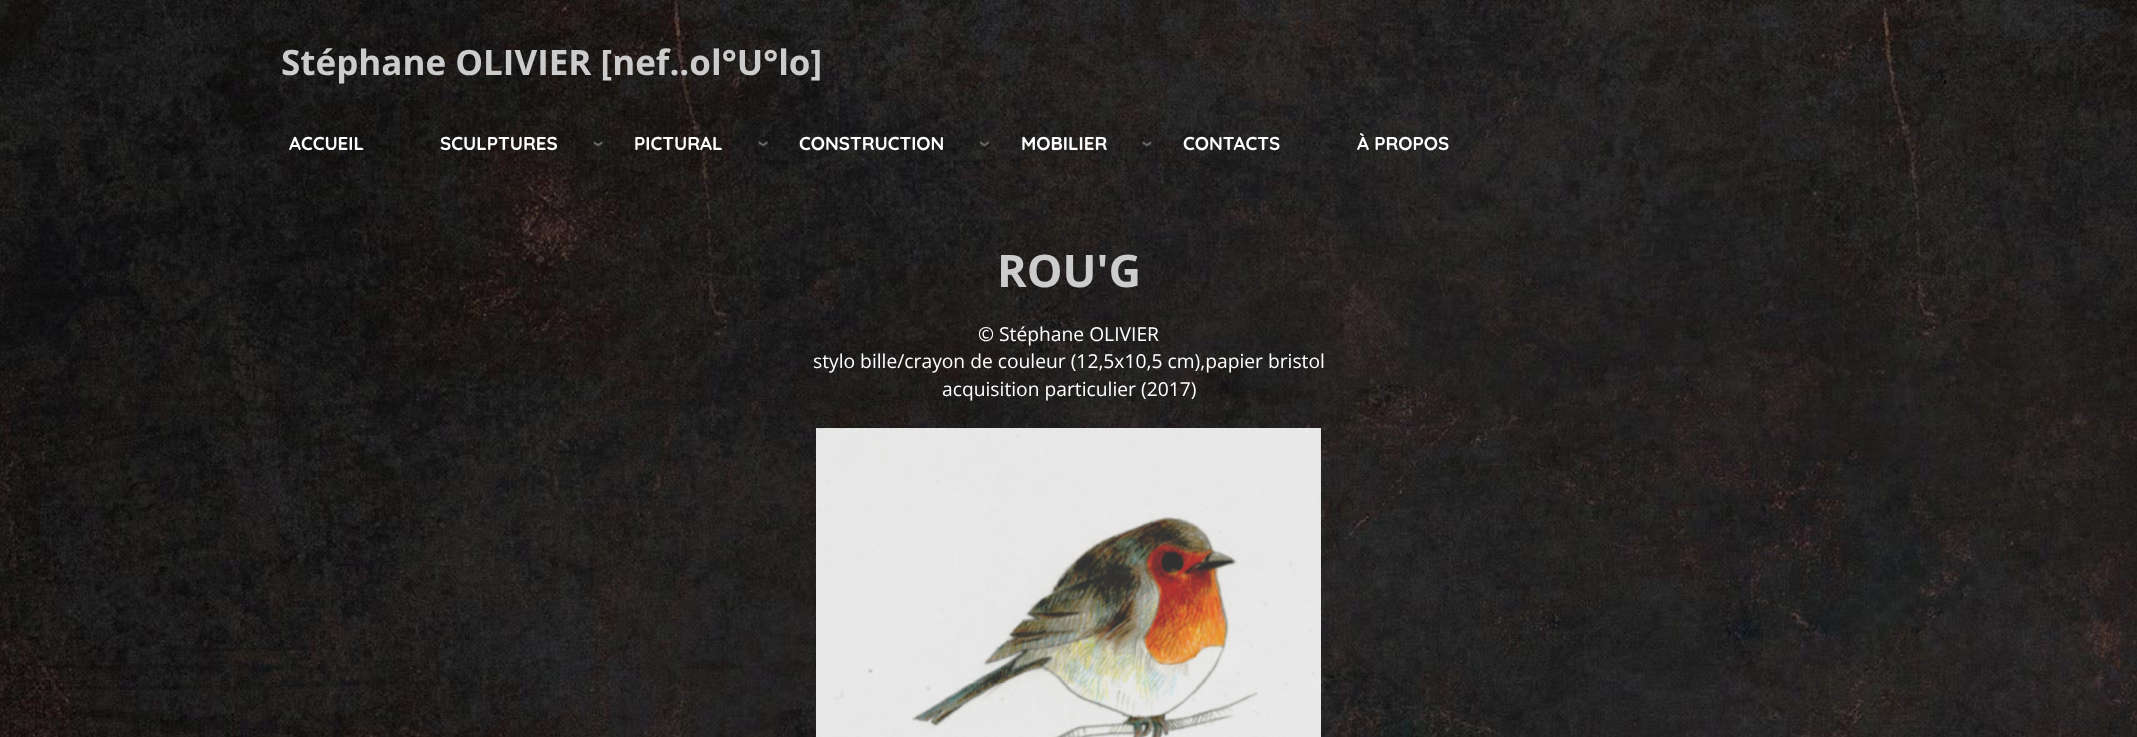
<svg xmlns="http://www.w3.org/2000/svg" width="2137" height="737">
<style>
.a{font:bold 35px Open Sans;fill:#ccc}
.b{font:bold 18.75px Quicksand;fill:#fff}
.c{font:bold 45px Open Sans;fill:#ccc}
.d{font:19.25px Open Sans;fill:#fff}
</style>
<rect width="100%" height="100%" fill="#fff"/>
<image href="1.png" x="0" y="0" width="2137" height="737"/>
<path fill="#0000001a" d="M414 116h1v36H414z"/>
<image href="2.png" x="593" y="141" width="10" height="6"/>
<path fill="#0000001a" d="M608 116h1v54H608z"/>
<image href="3.png" x="758" y="141" width="10" height="6"/>
<path fill="#0000001a" d="M773 116h1v54H773z"/>
<image href="4.png" x="980" y="141" width="9" height="6"/>
<path fill="#0000001a" d="M994 116h1v54H994z"/>
<image href="5.png" x="1142" y="141" width="10" height="6"/>
<path fill="#0000001a" d="M1156 118h1v52H1156z"/>
<path fill="#0000001a" d="M1330 118h1v52H1330z"/>
<image href="6.png" x="816" y="428" width="505" height="309"/>
<text class="a" x="281" y="75">Stéphane OLIVIER [nef..ol°U°lo]</text>
<text class="b" x="289" y="150">ACCUEIL</text>
<text class="b" x="440" y="150">SCULPTURES</text>
<text class="b" x="634" y="150">PICTURAL</text>
<text class="b" x="799" y="150">CONSTRUCTION</text>
<text class="b" x="1021" y="150">MOBILIER</text>
<text class="b" x="1183" y="150">CONTACTS</text>
<text class="b" x="1357" y="150">À PROPOS</text>
<text class="c" x="997" y="287">ROU'G</text>
<text class="d" x="978" y="341">© Stéphane OLIVIER</text>
<text class="d" x="813" y="368">stylo bille/crayon de couleur (12,5x10,5 cm),papier bristol</text>
<text class="d" x="942" y="396">acquisition particulier (2017)</text>
</svg>
